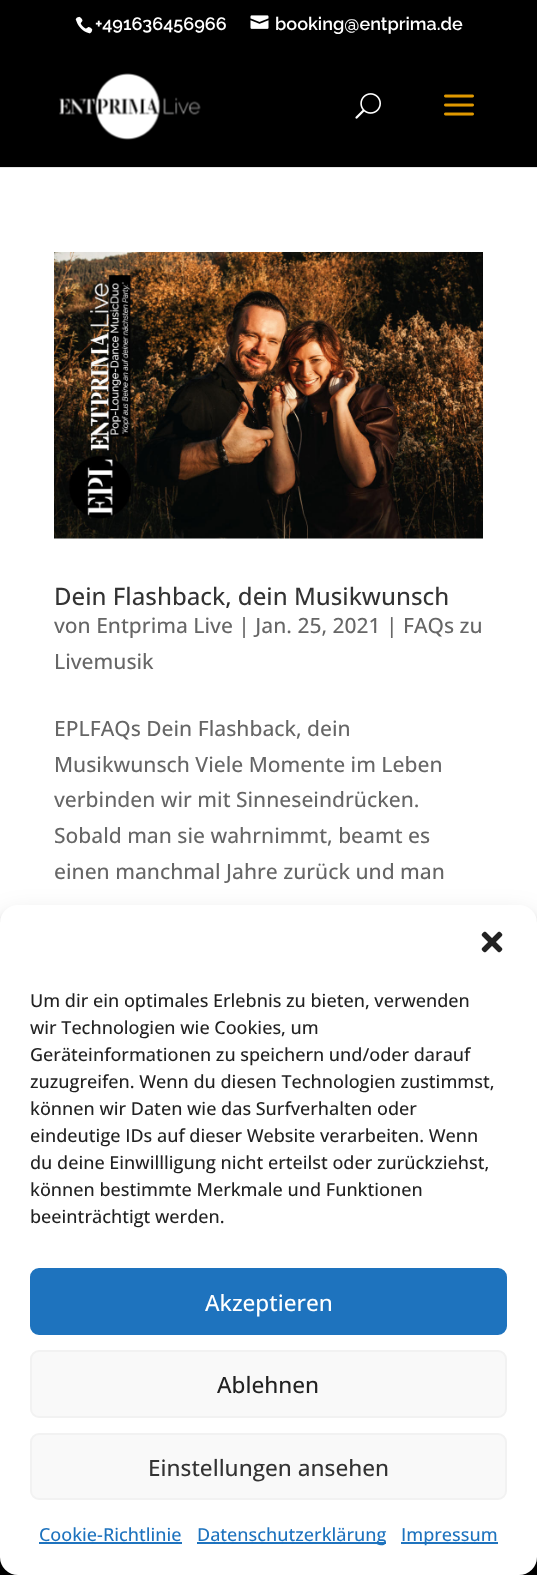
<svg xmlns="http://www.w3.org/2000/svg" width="537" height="1575">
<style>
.a{font:100 18px Raleway;fill:#fff}
.b{font:500 24px Open Sans;fill:#333}
.c{font:500 21px Open Sans;fill:#666}
.d{font:500 18px Open Sans;fill:#222}
.e{font:500 22.5px Open Sans;fill:#fff}
.f{font:500 22.5px Open Sans;fill:#222}
.g{font:500 22.5px Open Sans;fill:#333}
.h{font:500 18px Open Sans;fill:#1e73be}
</style>
<rect width="100%" height="100%" fill="#000"/>
<image href="1.png" x="75" y="16" width="18" height="18"/>
<image href="2.png" x="250" y="15" width="19" height="14"/>
<path fill="#e6e6e6" d="M0 167h537v1H0z"/>
<image href="3.png" x="59" y="73" width="142" height="67"/>
<image href="4.png" x="355" y="93" width="26" height="26"/>
<image href="5.png" x="444" y="94" width="30" height="22"/>
<path fill="#fff" d="M0 168h537v755H0z"/>
<image href="6.png" x="54" y="252" width="429" height="287"/>
<rect fill="#0000003b" filter="blur(4.5px)" y="914" width="537" height="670" rx="18"/>
<rect fill="#00000030" filter="blur(15px)" y="920" width="537" height="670" rx="18"/>
<rect fill="#808080" filter="blur(4px)" x="432" y="1464" width="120" height="90" rx="3"/>
<rect fill="#fff" y="905" width="537" height="670" rx="18"/>
<image href="7.png" x="481" y="931" width="22" height="22"/>
<rect fill="#1e73be" stroke="#1e73be" stroke-width="2" x="31" y="1269" width="475" height="65" rx="8"/>
<rect fill="#f9f9f9" stroke="#f2f2f2" stroke-width="2" x="31" y="1351" width="475" height="66" rx="8"/>
<rect fill="#f9f9f9" stroke="#f2f2f2" stroke-width="2" x="31" y="1434" width="475" height="65" rx="8"/>
<path fill="#1e73be" d="M39 1542h143v2H39z"/>
<path fill="#1e73be" d="M197 1542h189v2H197z"/>
<path fill="#1e73be" d="M401 1542h97v2H401z"/>
<text class="a" x="95" y="30">+491636456966</text>
<text class="a" x="275" y="30">booking@entprima.de</text>
<text class="b" x="54" y="605">Dein Flashback, dein Musikwunsch</text>
<text class="c" x="54" y="633">von Entprima Live | Jan. 25, 2021 | FAQs zu</text>
<text class="c" x="54" y="669">Livemusik</text>
<text class="c" x="54" y="736">EPLFAQs Dein Flashback, dein</text>
<text class="c" x="54" y="772">Musikwunsch Viele Momente im Leben</text>
<text class="c" x="54" y="807">verbinden wir mit Sinneseindrücken.</text>
<text class="c" x="54" y="843">Sobald man sie wahrnimmt, beamt es</text>
<text class="c" x="54" y="879">einen manchmal Jahre zurück und man</text>
<text class="d" x="30" y="1007">Um dir ein optimales Erlebnis zu bieten, verwenden</text>
<text class="d" x="30" y="1034">wir Technologien wie Cookies, um</text>
<text class="d" x="30" y="1061">Geräteinformationen zu speichern und/oder darauf</text>
<text class="d" x="30" y="1088">zuzugreifen. Wenn du diesen Technologien zustimmst,</text>
<text class="d" x="30" y="1115">können wir Daten wie das Surfverhalten oder</text>
<text class="d" x="30" y="1142">eindeutige IDs auf dieser Website verarbeiten. Wenn</text>
<text class="d" x="30" y="1169">du deine Einwillligung nicht erteilst oder zurückziehst,</text>
<text class="d" x="30" y="1196">können bestimmte Merkmale und Funktionen</text>
<text class="d" x="30" y="1223">beeinträchtigt werden.</text>
<text class="e" x="205" y="1311">Akzeptieren</text>
<text class="f" x="217" y="1393">Ablehnen</text>
<text class="g" x="148" y="1476">Einstellungen ansehen</text>
<text class="h" x="39" y="1541">Cookie-Richtlinie</text>
<text class="h" x="197" y="1541">Datenschutzerklärung</text>
<text class="h" x="401" y="1541">Impressum</text>
</svg>
